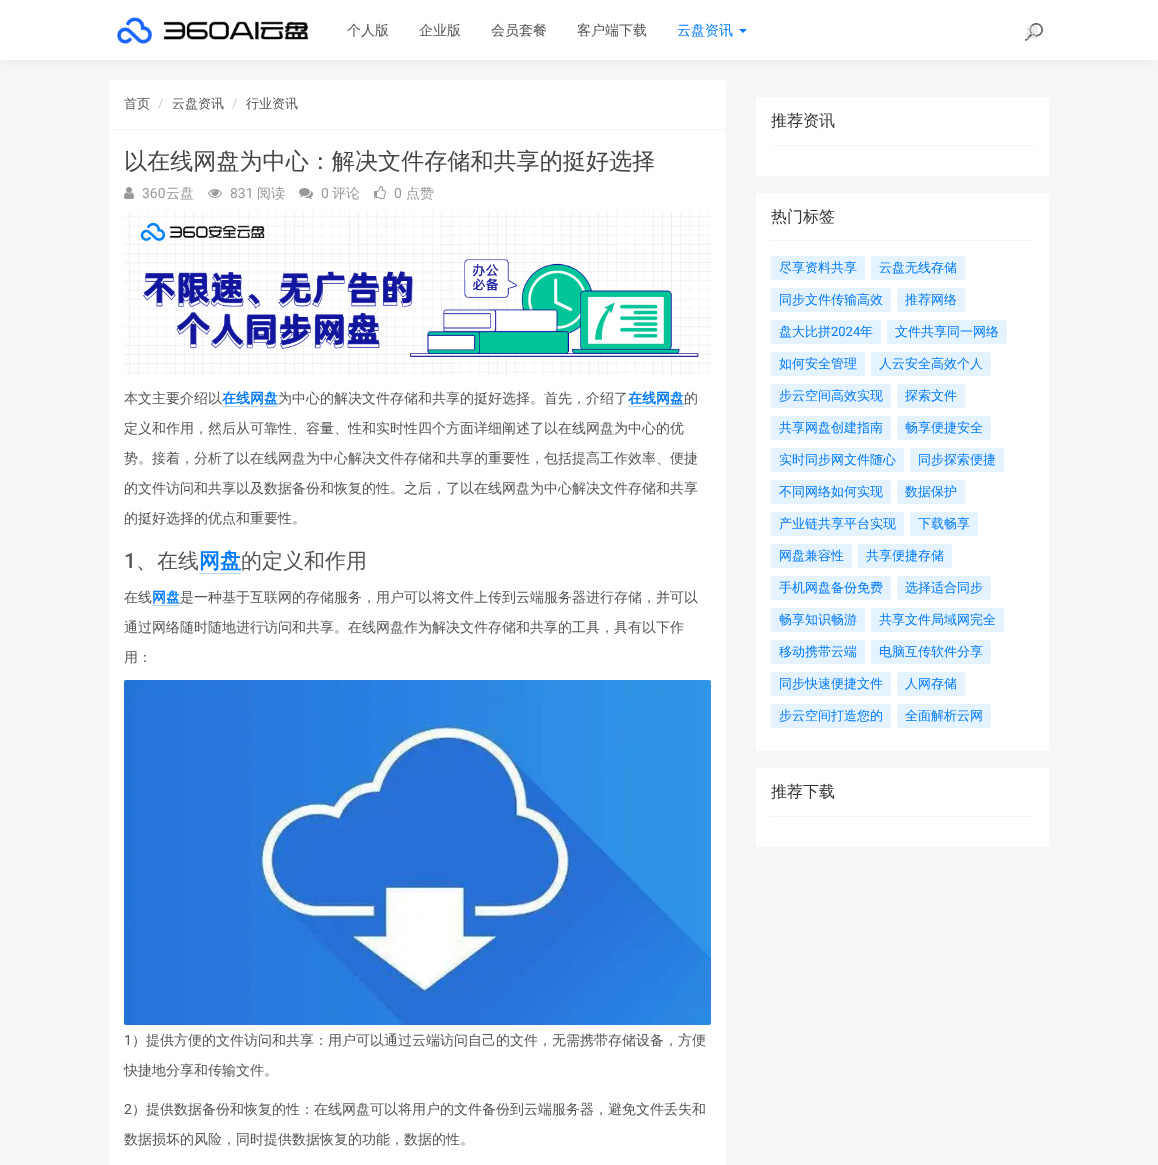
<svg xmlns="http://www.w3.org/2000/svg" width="1158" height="1165">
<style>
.a{font:500 14px WenQuanYi Zen Hei;fill:#555}
.b{font:500 14px WenQuanYi Zen Hei;fill:#007bff}
.c{font:500 14px WenQuanYi Zen Hei;fill:#ddd}
.d{font:500 13px WenQuanYi Zen Hei;fill:#555}
.e{font:13px Roboto;fill:#ccc}
.f{font:500 23.1px WenQuanYi Zen Hei;fill:#444}
.g{font:14px Roboto;fill:#999}
.h{font:500 14px WenQuanYi Zen Hei;fill:#999}
.i{font:bold 14px WenQuanYi Zen Hei;fill:#007bff}
.j{font:500 21px Roboto;fill:#555}
.k{font:500 21px WenQuanYi Zen Hei;fill:#555}
.l{font:bold 21px WenQuanYi Zen Hei;fill:#007bff}
.m{font:14px Roboto;fill:#555}
.n{font:500 16px WenQuanYi Zen Hei;fill:#333}
.o{font:500 13px WenQuanYi Zen Hei;fill:#007bff}
.p{font:13px Roboto;fill:#007bff}
</style>
<rect width="100%" height="100%" fill="#f4f6f8"/>
<path fill="#0000000d" filter="blur(4px)" d="M0 1h1158v60H0z"/>
<path fill="#fff" d="M0 0h1158v60H0z"/>
<image href="1.png" x="117" y="17" width="192" height="27"/>
<path fill="#007bff" d="M739 29h8l-4 4z"/>
<image href="2.png" x="1025" y="23" width="18" height="18"/>
<rect fill="#fff" x="109" y="80" width="617" height="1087" rx="2"/>
<path fill="#f5f5f5" d="M109 129h617v1H109z"/>
<image href="3.png" x="124" y="187" width="10" height="12"/>
<image href="4.png" x="208" y="189" width="14" height="9"/>
<image href="5.png" x="299" y="188" width="14" height="11"/>
<image href="6.png" x="374" y="186" width="12" height="13"/>
<image href="7.png" x="124" y="212" width="587" height="163"/>
<path fill="#b3d7ff" d="M222 406h56v1H222z"/>
<path fill="#b3d7ff" d="M628 406h56v1H628z"/>
<path fill="#b3d7ff" d="M199 573h42v1H199z"/>
<path fill="#b3d7ff" d="M152 605h28v1H152z"/>
<image href="8.png" x="124" y="680" width="587" height="345"/>
<rect fill="#fff" x="756" y="97" width="293" height="79" rx="2"/>
<path fill="#f5f5f5" d="M771 145h263v1H771z"/>
<rect fill="#fff" x="756" y="193" width="293" height="558" rx="2"/>
<path fill="#f5f5f5" d="M771 240h263v1H771z"/>
<rect fill="#e5f2ff" x="771" y="256" width="94" height="24" rx="2"/>
<rect fill="#e5f2ff" x="871" y="256" width="94" height="24" rx="2"/>
<rect fill="#e5f2ff" x="771" y="288" width="120" height="24" rx="2"/>
<rect fill="#e5f2ff" x="897" y="288" width="68" height="24" rx="2"/>
<rect fill="#e5f2ff" x="771" y="320" width="110" height="24" rx="2"/>
<rect fill="#e5f2ff" x="887" y="320" width="120" height="24" rx="2"/>
<rect fill="#e5f2ff" x="771" y="352" width="94" height="24" rx="2"/>
<rect fill="#e5f2ff" x="871" y="352" width="120" height="24" rx="2"/>
<rect fill="#e5f2ff" x="771" y="384" width="120" height="24" rx="2"/>
<rect fill="#e5f2ff" x="897" y="384" width="68" height="24" rx="2"/>
<rect fill="#e5f2ff" x="771" y="416" width="120" height="24" rx="2"/>
<rect fill="#e5f2ff" x="897" y="416" width="94" height="24" rx="2"/>
<rect fill="#e5f2ff" x="771" y="448" width="133" height="24" rx="2"/>
<rect fill="#e5f2ff" x="910" y="448" width="94" height="24" rx="2"/>
<rect fill="#e5f2ff" x="771" y="480" width="120" height="24" rx="2"/>
<rect fill="#e5f2ff" x="897" y="480" width="68" height="24" rx="2"/>
<rect fill="#e5f2ff" x="771" y="512" width="133" height="24" rx="2"/>
<rect fill="#e5f2ff" x="910" y="512" width="68" height="24" rx="2"/>
<rect fill="#e5f2ff" x="771" y="544" width="81" height="24" rx="2"/>
<rect fill="#e5f2ff" x="858" y="544" width="94" height="24" rx="2"/>
<rect fill="#e5f2ff" x="771" y="576" width="120" height="24" rx="2"/>
<rect fill="#e5f2ff" x="897" y="576" width="94" height="24" rx="2"/>
<rect fill="#e5f2ff" x="771" y="608" width="94" height="24" rx="2"/>
<rect fill="#e5f2ff" x="871" y="608" width="133" height="24" rx="2"/>
<rect fill="#e5f2ff" x="771" y="640" width="94" height="24" rx="2"/>
<rect fill="#e5f2ff" x="871" y="640" width="120" height="24" rx="2"/>
<rect fill="#e5f2ff" x="771" y="672" width="120" height="24" rx="2"/>
<rect fill="#e5f2ff" x="897" y="672" width="68" height="24" rx="2"/>
<rect fill="#e5f2ff" x="771" y="704" width="120" height="24" rx="2"/>
<rect fill="#e5f2ff" x="897" y="704" width="94" height="24" rx="2"/>
<rect fill="#fff" x="756" y="768" width="293" height="79" rx="2"/>
<path fill="#f5f5f5" d="M771 816h263v1H771z"/>
<text class="a" x="347" y="35">个人版</text>
<text class="a" x="419" y="35">企业版</text>
<text class="a" x="491" y="35">会员套餐</text>
<text class="a" x="577" y="35">客户端下载</text>
<text class="b" x="677" y="35">云盘资讯</text>
<text class="c" x="1025" y="37">搜</text>
<text class="d" x="124" y="108">首页</text>
<text class="e" x="158" y="108">/</text>
<text class="d" x="172" y="108">云盘资讯</text>
<text class="e" x="232" y="108">/</text>
<text class="d" x="246" y="108">行业资讯</text>
<text class="f" x="124" y="169">以在线网盘为中心：解决文件存储和共享的挺好选择</text>
<text class="g" x="142" y="198">360</text>
<text class="h" x="166" y="198">云盘</text>
<text class="g" x="230" y="198">831</text>
<text class="h" x="257" y="198">阅读</text>
<text class="g" x="321" y="198">0</text>
<text class="h" x="332" y="198">评论</text>
<text class="g" x="394" y="198">0</text>
<text class="h" x="406" y="198">点赞</text>
<text class="a" x="124" y="403">本文主要介绍以</text>
<text class="i" x="222" y="403">在线网盘</text>
<text class="a" x="278" y="403">为中心的解决文件存储和共享的挺好选择。首先，介绍了</text>
<text class="i" x="628" y="403">在线网盘</text>
<text class="a" x="684" y="403">的</text>
<text class="a" x="124" y="433">定义和作用，然后从可靠性、容量、性和实时性四个方面详细阐述了以在线网盘为中心的优</text>
<text class="a" x="124" y="463">势。接着，分析了以在线网盘为中心解决文件存储和共享的重要性，包括提高工作效率、便捷</text>
<text class="a" x="124" y="493">的文件访问和共享以及数据备份和恢复的性。之后，了以在线网盘为中心解决文件存储和共享</text>
<text class="a" x="124" y="523">的挺好选择的优点和重要性。</text>
<text class="j" x="124" y="568">1</text>
<text class="k" x="136" y="568">、在线</text>
<text class="l" x="199" y="568">网盘</text>
<text class="k" x="241" y="568">的定义和作用</text>
<text class="a" x="124" y="602">在线</text>
<text class="i" x="152" y="602">网盘</text>
<text class="a" x="180" y="602">是一种基于互联网的存储服务，用户可以将文件上传到云端服务器进行存储，并可以</text>
<text class="a" x="124" y="632">通过网络随时随地进行访问和共享。在线网盘作为解决文件存储和共享的工具，具有以下作</text>
<text class="a" x="124" y="662">用：</text>
<text class="m" x="124" y="1045">1</text>
<text class="a" x="132" y="1045">）提供方便的文件访问和共享：用户可以通过云端访问自己的文件，无需携带存储设备，方便</text>
<text class="a" x="124" y="1075">快捷地分享和传输文件。</text>
<text class="m" x="124" y="1114">2</text>
<text class="a" x="132" y="1114">）提供数据备份和恢复的性：在线网盘可以将用户的文件备份到云端服务器，避免文件丢失和</text>
<text class="a" x="124" y="1144">数据损坏的风险，同时提供数据恢复的功能，数据的性。</text>
<text class="n" x="771" y="126">推荐资讯</text>
<text class="n" x="771" y="222">热门标签</text>
<text class="o" x="779" y="272">尽享资料共享</text>
<text class="o" x="879" y="272">云盘无线存储</text>
<text class="o" x="779" y="304">同步文件传输高效</text>
<text class="o" x="905" y="304">推荐网络</text>
<text class="o" x="779" y="336">盘大比拼</text>
<text class="p" x="831" y="336">2024</text>
<text class="o" x="860" y="336">年</text>
<text class="o" x="895" y="336">文件共享同一网络</text>
<text class="o" x="779" y="368">如何安全管理</text>
<text class="o" x="879" y="368">人云安全高效个人</text>
<text class="o" x="779" y="400">步云空间高效实现</text>
<text class="o" x="905" y="400">探索文件</text>
<text class="o" x="779" y="432">共享网盘创建指南</text>
<text class="o" x="905" y="432">畅享便捷安全</text>
<text class="o" x="779" y="464">实时同步网文件随心</text>
<text class="o" x="918" y="464">同步探索便捷</text>
<text class="o" x="779" y="496">不同网络如何实现</text>
<text class="o" x="905" y="496">数据保护</text>
<text class="o" x="779" y="528">产业链共享平台实现</text>
<text class="o" x="918" y="528">下载畅享</text>
<text class="o" x="779" y="560">网盘兼容性</text>
<text class="o" x="866" y="560">共享便捷存储</text>
<text class="o" x="779" y="592">手机网盘备份免费</text>
<text class="o" x="905" y="592">选择适合同步</text>
<text class="o" x="779" y="624">畅享知识畅游</text>
<text class="o" x="879" y="624">共享文件局域网完全</text>
<text class="o" x="779" y="656">移动携带云端</text>
<text class="o" x="879" y="656">电脑互传软件分享</text>
<text class="o" x="779" y="688">同步快速便捷文件</text>
<text class="o" x="905" y="688">人网存储</text>
<text class="o" x="779" y="720">步云空间打造您的</text>
<text class="o" x="905" y="720">全面解析云网</text>
<text class="n" x="771" y="797">推荐下载</text>
</svg>
